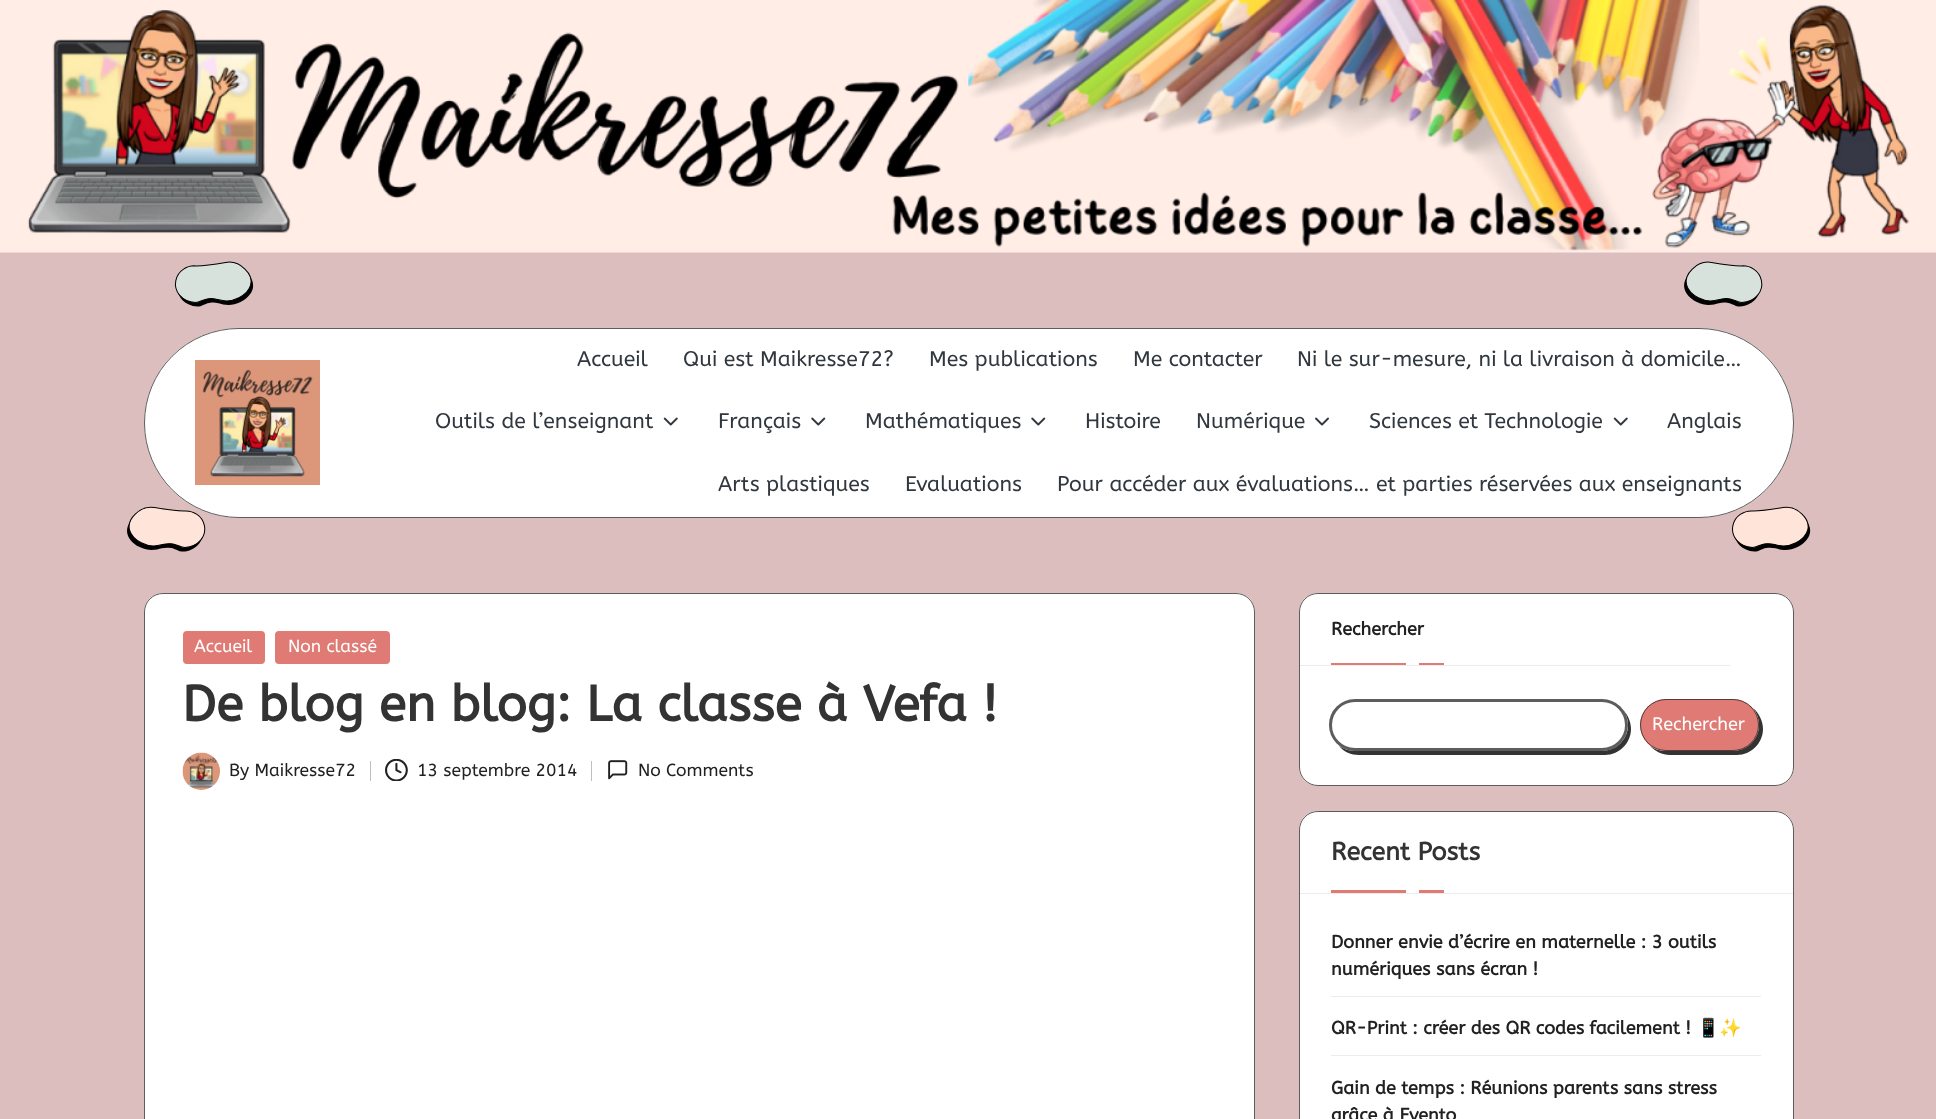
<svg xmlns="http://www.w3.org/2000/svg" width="1936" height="1119">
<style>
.a{font:21.25px ABeeZee;fill:#30373e}
.b{font:17.5px ABeeZee;fill:#fff}
.c{font:bold 50px ABeeZee;fill:#333}
.d{font:17.5px ABeeZee;fill:#212121}
.e{font:bold 18.1px ABeeZee;fill:#212121}
.f{font:18.1px ABeeZee;fill:#fff}
.g{font:bold 25px ABeeZee;fill:#333}
.h{font:bold 18.1px Noto Color Emoji;fill:#212121}
</style>
<rect width="100%" height="100%" fill="#ddbebe"/>
<image href="1.png" x="127" y="261" width="1684" height="291"/>
<image href="2.png" x="0" y="0" width="1936" height="253"/>
<rect fill="#fff" x="144" y="328" width="1650" height="190" rx="95"/>
<rect fill="none" stroke="#272727bf" x="144.5" y="328.5" width="1649" height="189" rx="94.5"/>
<image href="3.png" x="195" y="360" width="125" height="125"/>
<image href="4.png" x="663" y="417" width="15" height="9"/>
<image href="5.png" x="811" y="417" width="15" height="9"/>
<image href="5.png" x="1031" y="417" width="15" height="9"/>
<image href="6.png" x="1315" y="417" width="14" height="9"/>
<image href="4.png" x="1613" y="417" width="15" height="9"/>
<rect fill="#fff" x="144" y="593" width="1111" height="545" rx="19"/>
<rect fill="none" stroke="#272727bf" x="144.5" y="593.5" width="1110" height="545" rx="18.5"/>
<rect fill="#e07a74" x="183" y="631" width="82" height="33" rx="4"/>
<rect fill="#e07a74" x="275" y="631" width="115" height="33" rx="4"/>
<image href="7.png" x="182" y="752" width="38" height="38"/>
<path fill="#bfbfbf" d="M370 761h1v20H370z"/>
<image href="8.png" x="385" y="759" width="23" height="22"/>
<path fill="#bfbfbf" d="M591 761h1v20H591z"/>
<image href="9.png" x="608" y="760" width="20" height="20"/>
<rect fill="#fff" x="1299" y="593" width="495" height="193" rx="19"/>
<rect fill="none" stroke="#272727bf" x="1299.5" y="593.5" width="494" height="192" rx="18.5"/>
<path fill="#ececec" d="M1300 665h430v1H1300z"/>
<path fill="#e07a74" d="M1331 663h75v2H1331z"/>
<path fill="#e07a74" d="M1419 663h25v2H1419z"/>
<path fill="#333" d="M1339 746c5 6 12 9 20 9h246c14 0 26-12 26-26c0-7-3-14-8-19c3 4 5 9 5 15c0 14-12 26-27 26h-246c-6 0-11-2-16-5z"/>
<rect fill="#fff" x="1329" y="699" width="299" height="52" rx="26"/>
<rect fill="none" stroke="#272727bf" stroke-width="3" x="1330.5" y="700.5" width="296" height="49" rx="24.5"/>
<path fill="#333" d="M1650 746c5 5 12 9 20 9h67c14 0 26-12 26-26c0-8-4-16-10-21c4 5 6 11 6 17c0 14-12 26-27 26h-66c-6 0-12-2-16-5z"/>
<rect fill="#e07a74" x="1640" y="699" width="119" height="52" rx="26"/>
<rect fill="none" stroke="#272727bf" x="1640.5" y="699.5" width="118" height="51" rx="25.5"/>
<rect fill="#fff" x="1299" y="811" width="495" height="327" rx="19"/>
<rect fill="none" stroke="#272727bf" x="1299.5" y="811.5" width="494" height="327" rx="18.5"/>
<path fill="#ececec" d="M1300 893h493v1H1300z"/>
<path fill="#e07a74" d="M1331 890h75v3H1331z"/>
<path fill="#e07a74" d="M1419 890h25v3H1419z"/>
<path fill="#ececec" d="M1331 996h430v1H1331z"/>
<path fill="#ececec" d="M1331 1055h430v1H1331z"/>
<text class="a" x="577" y="366">Accueil</text>
<text class="a" x="683" y="366">Qui est Maikresse72?</text>
<text class="a" x="929" y="366">Mes publications</text>
<text class="a" x="1133" y="366">Me contacter</text>
<text class="a" x="1297" y="366">Ni le sur-mesure, ni la livraison à domicile…</text>
<text class="a" x="435" y="428">Outils de l’enseignant</text>
<text class="a" x="718" y="428">Français</text>
<text class="a" x="865" y="428">Mathématiques</text>
<text class="a" x="1085" y="428">Histoire</text>
<text class="a" x="1196" y="428">Numérique</text>
<text class="a" x="1369" y="428">Sciences et Technologie</text>
<text class="a" x="1667" y="428">Anglais</text>
<text class="a" x="718" y="491">Arts plastiques</text>
<text class="a" x="905" y="491">Evaluations</text>
<text class="a" x="1057" y="491">Pour accéder aux évaluations… et parties réservées aux enseignants</text>
<text class="b" x="194" y="652">Accueil</text>
<text class="b" x="288" y="652">Non classé</text>
<text class="c" x="182" y="721">De blog en blog: La classe à Vefa !</text>
<text class="d" x="229" y="776">By Maikresse72</text>
<text class="d" x="417" y="776">13 septembre 2014</text>
<text class="d" x="638" y="776">No Comments</text>
<text class="e" x="1331" y="635">Rechercher</text>
<text class="f" x="1652" y="730">Rechercher</text>
<text class="g" x="1331" y="860">Recent Posts</text>
<text class="e" x="1331" y="948">Donner envie d’écrire en maternelle : 3 outils</text>
<text class="e" x="1331" y="975">numériques sans écran !</text>
<text class="e" x="1331" y="1034">QR-Print : créer des QR codes facilement !</text>
<text class="h" x="1697" y="1034">📱✨</text>
<text class="e" x="1331" y="1094">Gain de temps : Réunions parents sans stress</text>
<text class="e" x="1331" y="1121">grâce à Evento</text>
</svg>
